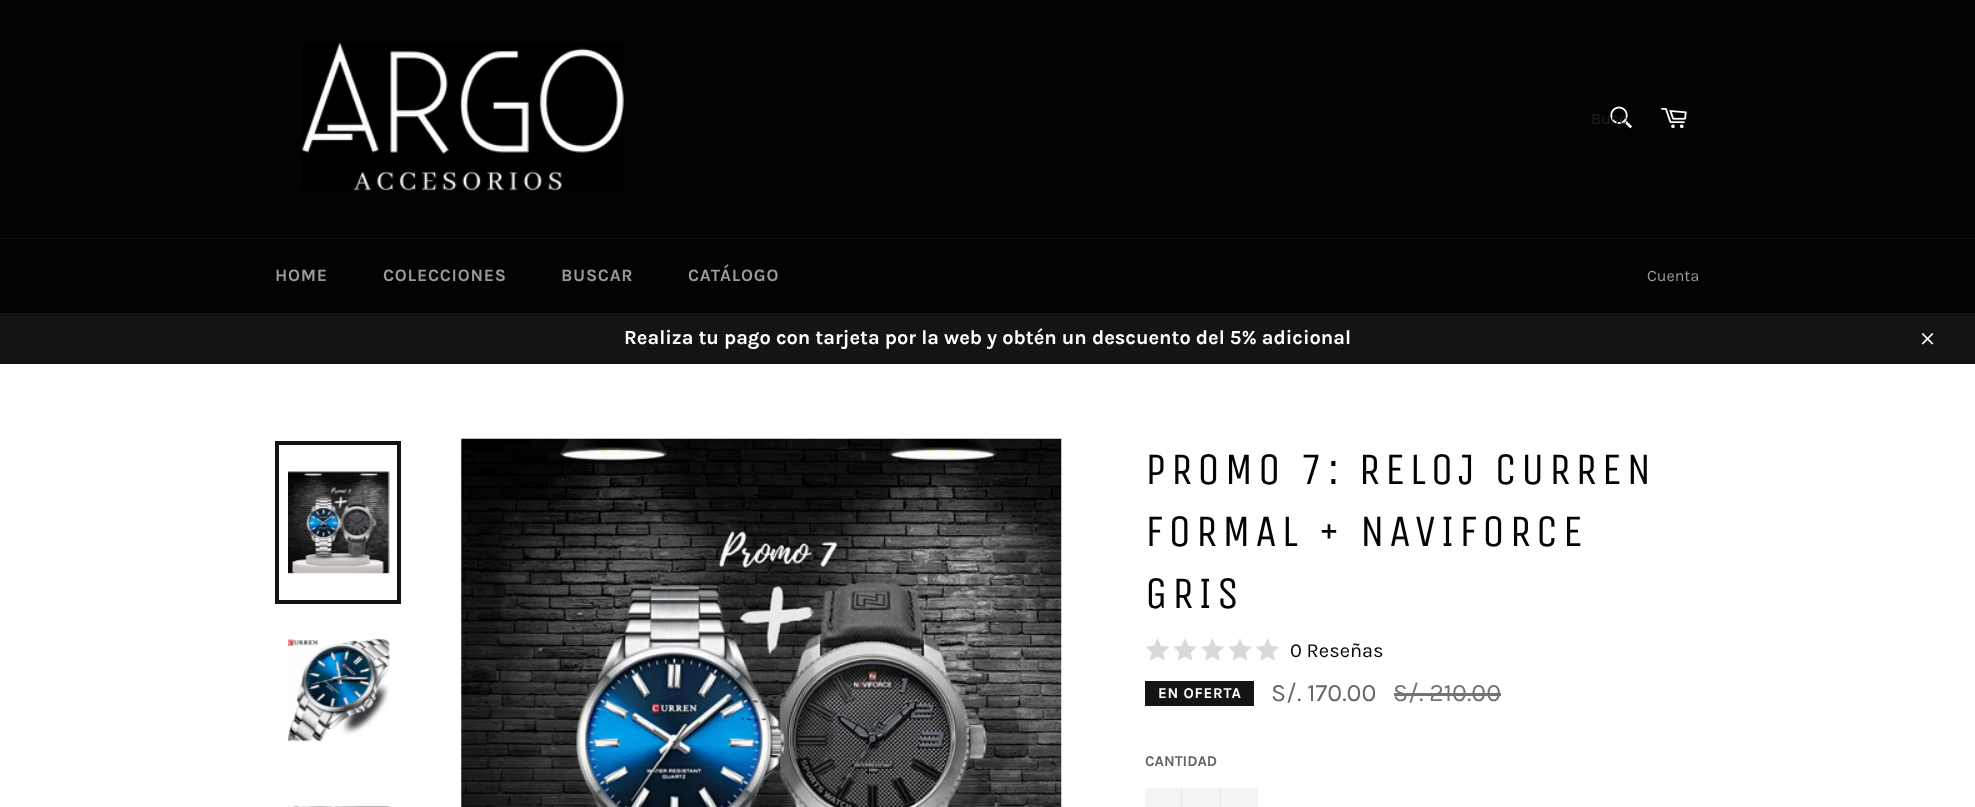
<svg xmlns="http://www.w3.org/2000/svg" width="1975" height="807">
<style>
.a{font:16px Karla;fill:#232323}
.b{font:bold 17.5px Karla;letter-spacing:0.75px;fill:#9a9a9a}
.c{font:16px Karla;fill:#9a9a9a}
.d{font:bold 20px Karla;fill:#fff}
.e{font:45px Unica One;letter-spacing:4.5px;fill:#030303}
.f{font:20px Karla;fill:#030303}
.g{font:bold 15px Karla;letter-spacing:0.75px;fill:#fff}
.h{font:25px Karla;fill:#666}
.i{font:25px Karla;fill:#737373}
.j{font:bold 15px Karla;fill:#666}
</style>
<rect width="100%" height="100%" fill="#fff"/>
<path fill="#030303" d="M0 0h1975v238H0z"/>
<image href="1.png" x="302" y="42" width="322" height="149"/>
<image href="2.png" x="1610" y="106" width="22" height="23"/>
<image href="3.png" x="1661" y="108" width="26" height="21"/>
<path fill="#030303" d="M0 239h1975v74H0z"/>
<path fill="#101010" d="M0 238h1975v1H0z"/>
<path fill="#131415" d="M0 313h1975v51H0z"/>
<image href="4.png" x="1921" y="333" width="13" height="12"/>
<image href="5.png" x="288" y="471" width="102" height="103"/>
<path fill="none" stroke="#131415" stroke-width="4" d="M277 443h122v159H277z"/>
<image href="6.png" x="288" y="639" width="102" height="103"/>
<image href="7.png" x="288" y="806" width="102" height="1"/>
<image href="8.png" x="461" y="438" width="601" height="369"/>
<image href="9.png" x="1146" y="638" width="23" height="23"/>
<image href="10.png" x="1173" y="638" width="24" height="23"/>
<image href="9.png" x="1201" y="638" width="23" height="23"/>
<image href="10.png" x="1228" y="638" width="24" height="23"/>
<image href="9.png" x="1256" y="638" width="23" height="23"/>
<path fill="#131415" d="M1145 681h109v25H1145z"/>
<path fill="#737373" d="M1394 693h107v3H1394z"/>
<path fill="#f4f4f4" d="M1145 788h113v19H1145z"/>
<path fill="#e7e7e7" d="M1181 788h1v19H1181z"/>
<path fill="#e7e7e7" d="M1220 788h1v19H1220z"/>
<text class="a" x="1591" y="124">Busc</text>
<text class="b" x="275" y="281">HOME</text>
<text class="b" x="383" y="281">COLECCIONES</text>
<text class="b" x="561" y="281">BUSCAR</text>
<text class="b" x="688" y="281">CATÁLOGO</text>
<text class="c" x="1647" y="281">Cuenta</text>
<text class="d" x="624" y="344">Realiza tu pago con tarjeta por la web y obtén un descuento del 5% adicional</text>
<text class="e" x="1145" y="484">PROMO 7: RELOJ CURREN</text>
<text class="e" x="1145" y="546">FORMAL + NAVIFORCE</text>
<text class="e" x="1145" y="608">GRIS</text>
<text class="f" x="1290" y="657">0 Reseñas</text>
<text class="g" x="1158" y="698">EN OFERTA</text>
<text class="h" x="1271" y="701">S/. 170.00</text>
<text class="i" x="1393" y="701">S/. 210.00</text>
<text class="j" x="1145" y="766">CANTIDAD</text>
</svg>
